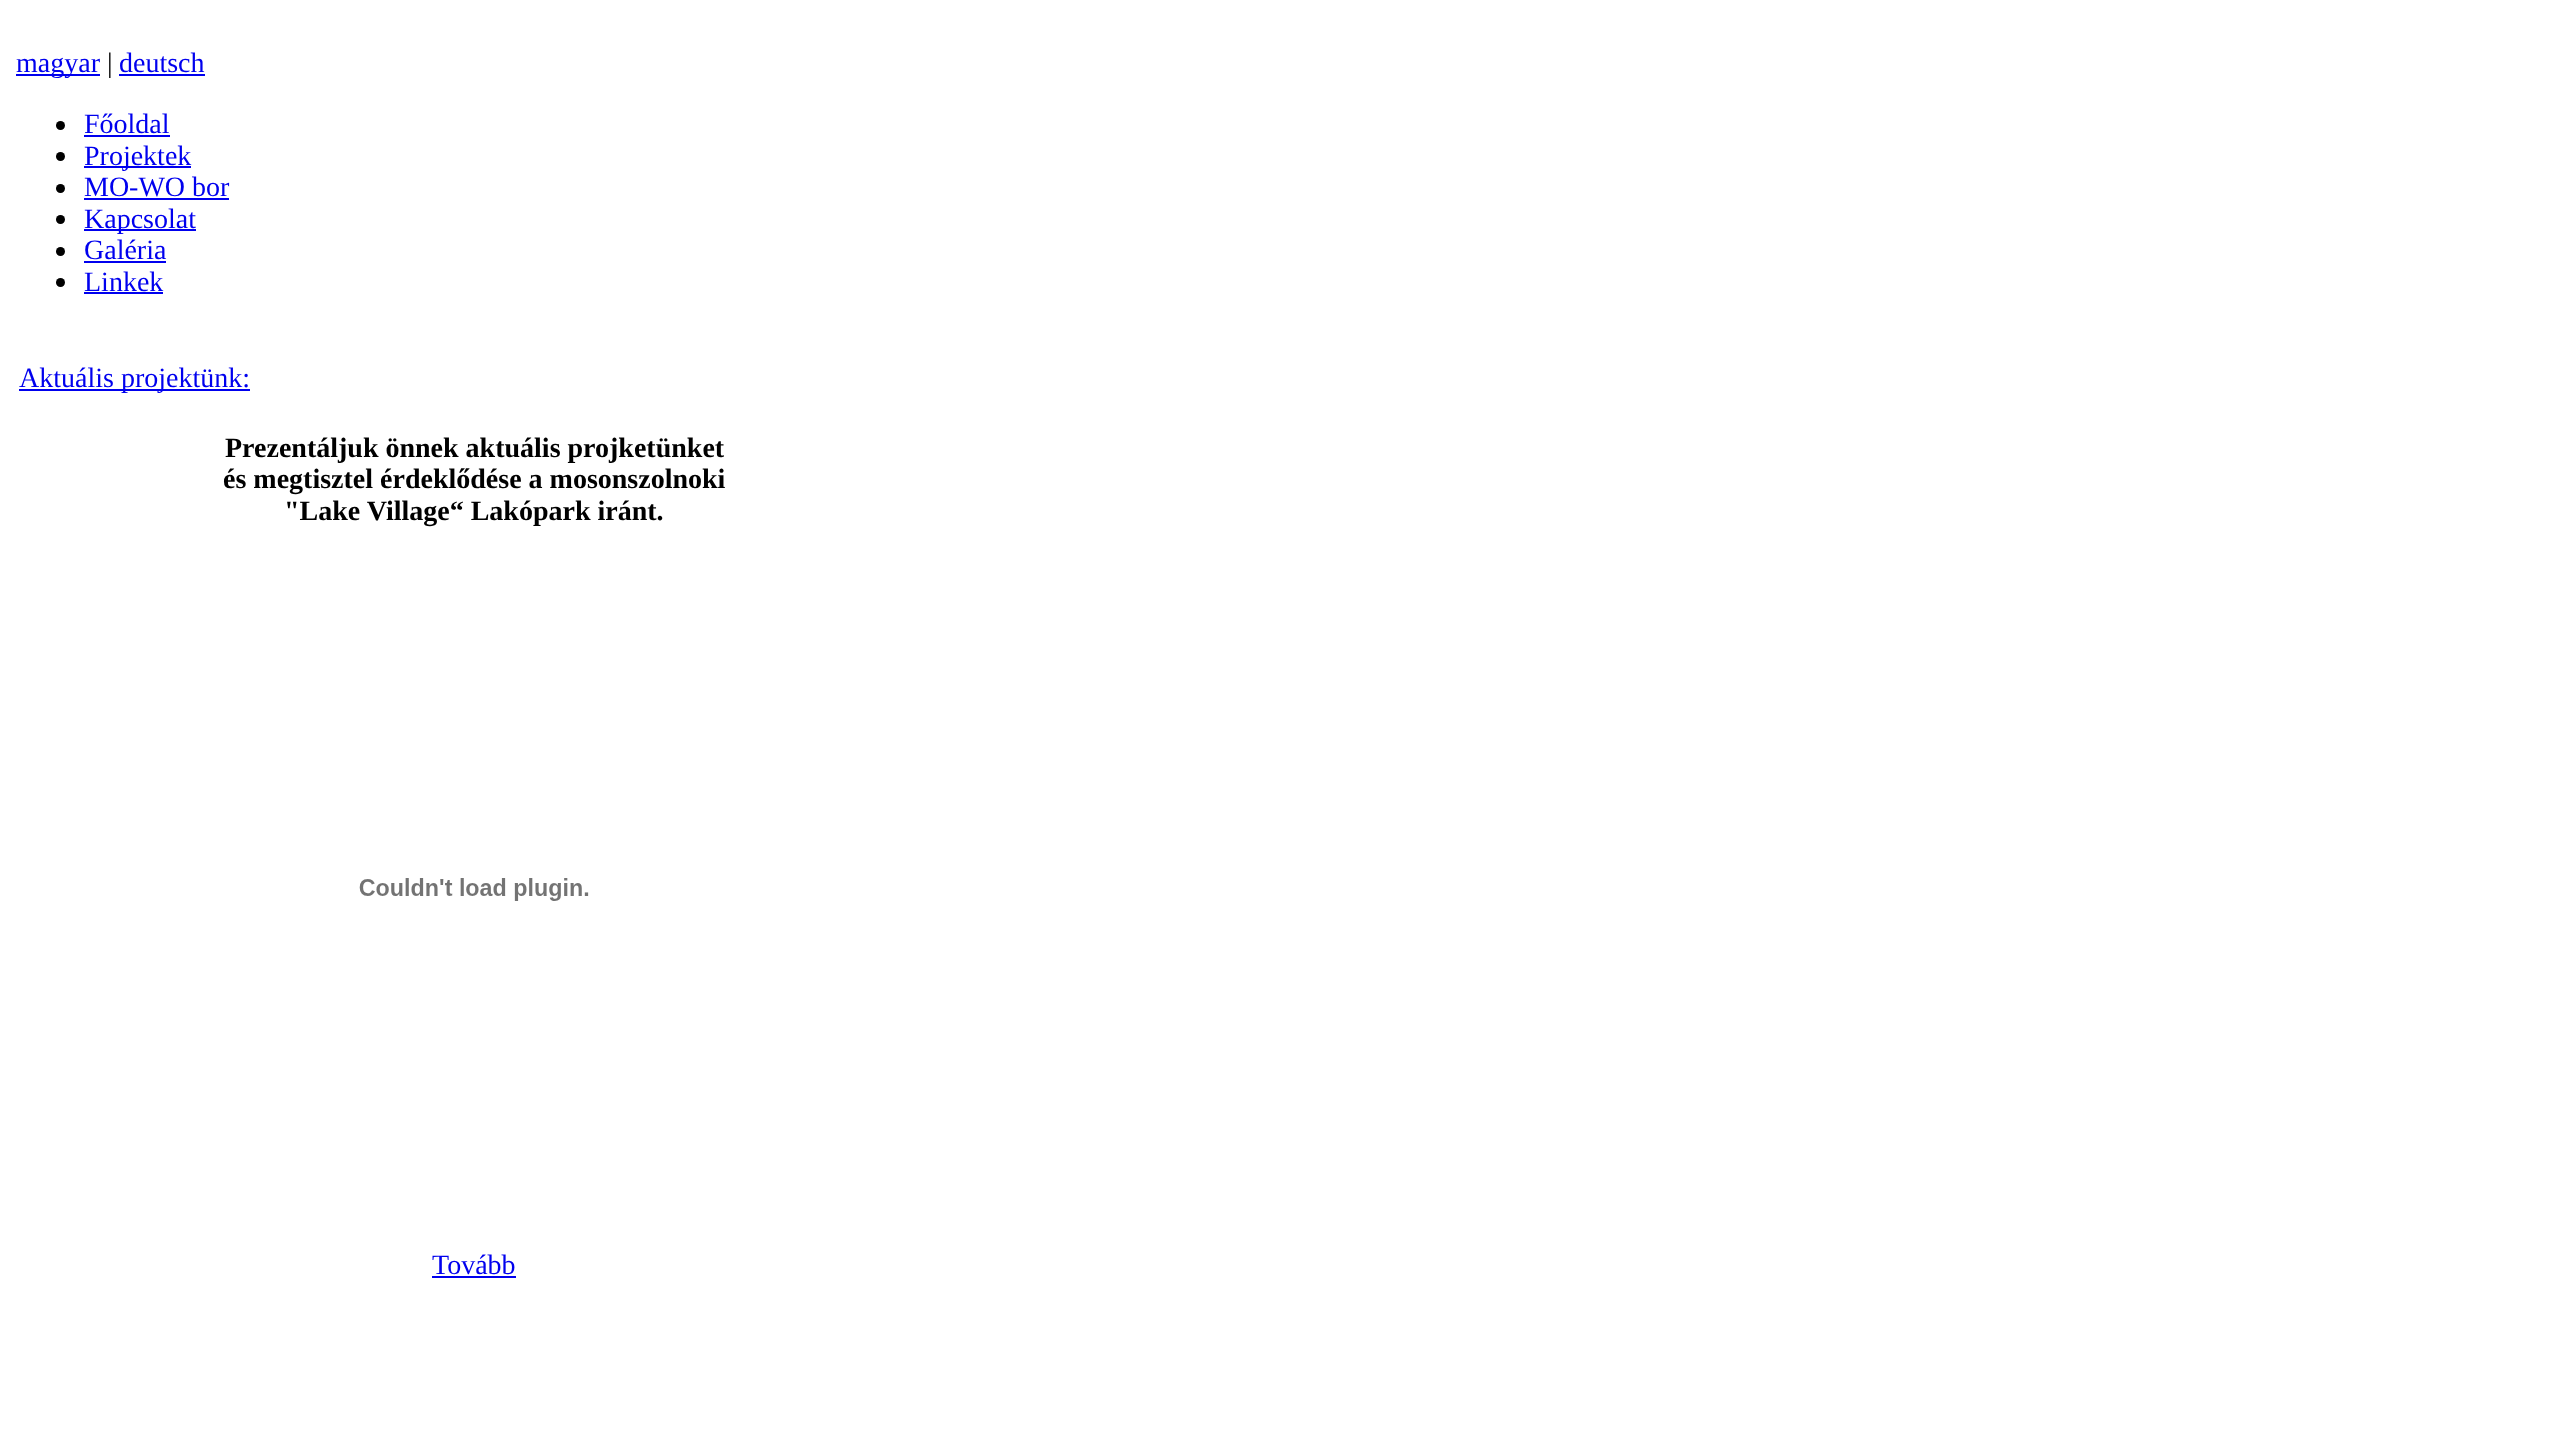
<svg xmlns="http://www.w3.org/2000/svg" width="2567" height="1445">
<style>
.a{font:28px Liberation Serif;fill:#00e}
.b{font:28px Liberation Serif;fill:#000}
.c{font:bold 28px Liberation Serif;fill:#000}
</style>
<rect width="100%" height="100%" fill="#fff"/>
<path fill="#00e" d="M16 74h84v2H16z"/>
<path fill="#00e" d="M119 74h86v2H119z"/>
<circle fill="#000" cx="60.5" cy="125.5" r="4.5"/>
<path fill="#00e" d="M84 135h86v2H84z"/>
<circle fill="#000" cx="60.5" cy="156.5" r="4.5"/>
<path fill="#00e" d="M84 166h107v2H84z"/>
<circle fill="#000" cx="60.5" cy="188.5" r="4.5"/>
<path fill="#00e" d="M84 198h145v2H84z"/>
<circle fill="#000" cx="60.5" cy="219.5" r="4.5"/>
<path fill="#00e" d="M84 229h112v2H84z"/>
<circle fill="#000" cx="60.5" cy="251.5" r="4.5"/>
<path fill="#00e" d="M84 261h82v2H84z"/>
<circle fill="#000" cx="60.5" cy="282.5" r="4.5"/>
<path fill="#00e" d="M84 292h79v2H84z"/>
<path fill="#00e" d="M19 389h231v2H19z"/>
<image href="1.png" x="359" y="878" width="230" height="23"/>
<path fill="#00e" d="M432 1276h84v2H432z"/>
<text class="a" x="16" y="72">magyar</text>
<text class="b" x="107" y="72">|</text>
<text class="a" x="119" y="72">deutsch</text>
<text class="a" x="84" y="133">Főoldal</text>
<text class="a" x="84" y="165">Projektek</text>
<text class="a" x="84" y="196">MO-WO bor</text>
<text class="a" x="84" y="228">Kapcsolat</text>
<text class="a" x="84" y="259">Galéria</text>
<text class="a" x="84" y="291">Linkek</text>
<text class="a" x="19" y="387">Aktuális projektünk:</text>
<text class="c" x="225" y="457">Prezentáljuk önnek aktuális projketünket</text>
<text class="c" x="223" y="488">és megtisztel érdeklődése a mosonszolnoki</text>
<text class="c" x="284" y="520">"Lake Village“ Lakópark iránt.</text>
<text class="a" x="432" y="1274">Tovább</text>
</svg>
